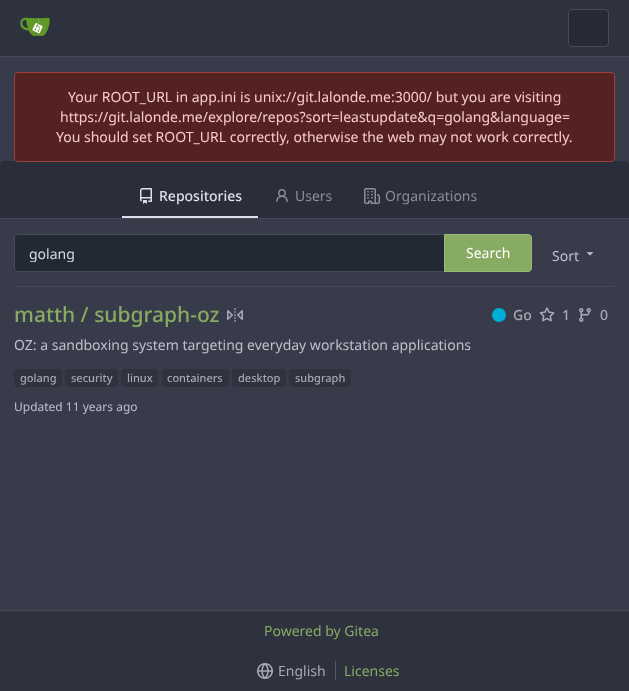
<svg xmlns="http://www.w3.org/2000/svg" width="629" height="691">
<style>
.a{font:14px Noto Sans;fill:#f9cbcb}
.b{font:500 14px Noto Sans;fill:#dbe0ea}
.c{font:14px Noto Sans;fill:#8a8e99}
.d{font:14px Noto Sans;fill:#d5dbe6}
.e{font:14px Noto Sans;fill:#fff}
.f{font:14px Noto Sans;fill:#bbc0ca}
.g{font:500 21px Noto Sans;fill:#87ab63}
.h{font:500 14px Noto Sans;fill:#a6aab5}
.i{font:500 11px Noto Sans;fill:#a6aab5}
.j{font:12px Noto Sans;fill:#bbc0ca}
.k{font:14px Noto Sans;fill:#87ab63}
.l{font:14px Noto Sans;fill:#a6aab5}
</style>
<defs>
<clipPath id="clip1"><path d="M29 245h400v17H29z"/></clipPath>
</defs>
<rect width="100%" height="100%" fill="#383c4a"/>
<path fill="#2e323e" d="M0 0h629v56H0z"/>
<path fill="#454a57" d="M0 56h629v1H0z"/>
<image href="1.png" x="20" y="17" width="30" height="19"/>
<rect fill="#272a34" x="568" y="9" width="41" height="38" rx="4"/>
<rect fill="none" stroke="#ffffff29" x="568.5" y="9.5" width="40" height="37" rx="3.5"/>
<path fill="#2a2e3a" d="M4 161h621c2 0 4 2 4 4v54h-629v-54c0-2 2-4 4-4z"/>
<rect fill="#522" stroke="#a04141" x="14.5" y="72.5" width="600" height="89" rx="3.5"/>
<path fill="#454a57" d="M0 218h629v1H0z"/>
<path fill="#dbe0ea" d="M122 216h136v2H122z"/>
<image href="2.png" x="140" y="188" width="12" height="16"/>
<image href="3.png" x="276" y="189" width="12" height="13"/>
<image href="4.png" x="364" y="188" width="16" height="16"/>
<path fill="#232933" d="M18 234h426v38h-426c-2 0-4-2-4-4v-30c0-2 2-4 4-4z"/>
<path fill="#454a57" d="M18 234l-3 1l1 1l2-1h425l1-1z"/>
<path fill="#454a57" d="M444 272l-1-1h-425l-2-1l-1 1l3 1z"/>
<path fill="#454a57" d="M14 238v30c0 1 .5 2 1 3l1-1c-1 0-1-1-1-2v-30c0-1 0-2 1-2l-1-1c-.5 1-1 2-1 3z"/>
<path fill="#87ab63" d="M444 234h84c2 0 4 2 4 4v30c0 2-2 4-4 4h-84z"/>
<path fill="none" stroke="#ffffff29" d="M444.5 234.5h83.5c2 0 3.5 1.5 3.5 3.5v30c0 2-1.5 3.5-3.5 3.5h-83.5z"/>
<image href="5.png" x="586" y="252" width="8" height="4"/>
<path fill="#454a57" d="M14 286h601v1H14z"/>
<image href="6.png" x="227" y="308" width="16" height="14"/>
<circle fill="#00add8" cx="499" cy="315" r="7"/>
<image href="7.png" x="539" y="307" width="16" height="15"/>
<image href="8.png" x="579" y="308" width="12" height="14"/>
<rect fill="#2f333e" x="14" y="369" width="48" height="18" rx="4"/>
<rect fill="#2f333e" x="65" y="369" width="53" height="18" rx="4"/>
<rect fill="#2f333e" x="121" y="369" width="37" height="18" rx="4"/>
<rect fill="#2f333e" x="162" y="369" width="67" height="18" rx="4"/>
<rect fill="#2f333e" x="232" y="369" width="54" height="18" rx="4"/>
<rect fill="#2f333e" x="289" y="369" width="62" height="18" rx="4"/>
<path fill="#2e323e" d="M0 611h629v80H0z"/>
<path fill="#454a57" d="M0 610h629v1H0z"/>
<image href="9.png" x="257" y="663" width="16" height="16"/>
<path fill="#505665" d="M335 661h1v19H335z"/>
<text class="a" x="68" y="102">Your ROOT_URL in app.ini is unix://git.lalonde.me:3000/ but you are visiting</text>
<text class="a" x="60" y="122">https://git.lalonde.me/explore/repos?sort=leastupdate&amp;q=golang&amp;language=</text>
<text class="a" x="56" y="142">You should set ROOT_URL correctly, otherwise the web may not work correctly.</text>
<text class="b" x="159" y="201">Repositories</text>
<text class="c" x="295" y="201">Users</text>
<text class="c" x="385" y="201">Organizations</text>
<g clip-path="url(#clip1)">
<text class="d" x="29" y="259">golang</text>
</g>
<text class="e" x="466" y="258">Search</text>
<text class="f" x="552" y="261">Sort</text>
<text class="g" x="14" y="322">matth / subgraph-oz</text>
<text class="h" x="513" y="320">Go</text>
<text class="h" x="562" y="320">1</text>
<text class="h" x="600" y="320">0</text>
<text class="f" x="14" y="350">OZ: a sandboxing system targeting everyday workstation applications</text>
<text class="i" x="20" y="382">golang</text>
<text class="i" x="71" y="382">security</text>
<text class="i" x="127" y="382">linux</text>
<text class="i" x="167" y="382">containers</text>
<text class="i" x="238" y="382">desktop</text>
<text class="i" x="295" y="382">subgraph</text>
<text class="j" x="14" y="411">Updated 11 years ago</text>
<text class="k" x="264" y="636">Powered by Gitea</text>
<text class="l" x="278" y="676">English</text>
<text class="k" x="344" y="676">Licenses</text>
</svg>
